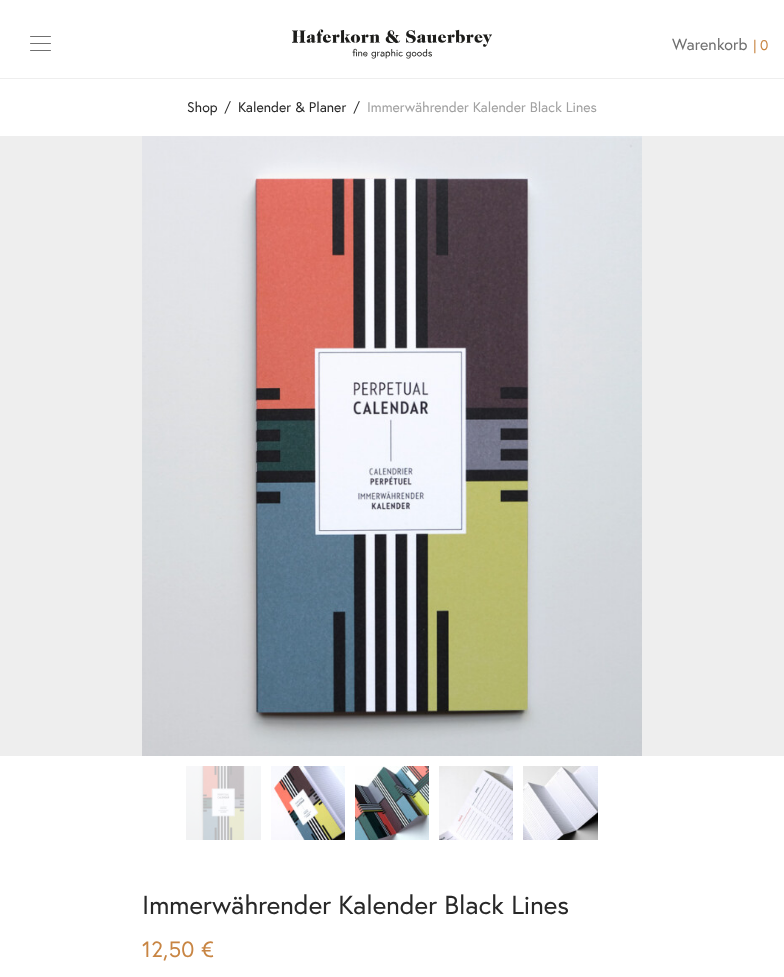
<svg xmlns="http://www.w3.org/2000/svg" width="784" height="977">
<style>
.a{font:16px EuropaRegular;fill:#707070}
.b{font:14px EuropaRegular;fill:#c88543}
.c{font:14px EuropaRegular;fill:#282828}
.d{font:14px EuropaRegular;fill:#a1a1a1}
.e{font:26px EuropaRegular;fill:#282828}
.f{font:22px EuropaRegular;letter-spacing:0.25px;fill:#c88543}
</style>
<rect width="100%" height="100%" fill="#fff"/>
<path fill="#eee" d="M0 78h784v1H0z"/>
<rect fill="#707070" x="30" y="36" width="21" height="1" rx="0.5"/>
<rect fill="#707070" x="30" y="43" width="21" height="1" rx="0.5"/>
<rect fill="#707070" x="30" y="50" width="21" height="1" rx="0.5"/>
<image href="1.png" x="292" y="29" width="200" height="30"/>
<path fill="#eee" d="M0 136h784v620H0z"/>
<image href="2.png" x="142" y="136" width="500" height="620"/>
<image href="3.png" x="186" y="766" width="75" height="74"/>
<image href="4.png" x="271" y="766" width="74" height="74"/>
<image href="5.png" x="355" y="766" width="74" height="74"/>
<image href="6.png" x="439" y="766" width="74" height="74"/>
<image href="7.png" x="523" y="766" width="75" height="74"/>
<text class="a" x="672" y="50">Warenkorb</text>
<text class="b" x="753" y="50">|</text>
<text class="b" x="760" y="50">0</text>
<text class="c" x="187" y="112">Shop</text>
<text class="c" x="224" y="112">/</text>
<text class="c" x="238" y="112">Kalender &amp; Planer</text>
<text class="c" x="353" y="112">/</text>
<text class="d" x="367" y="112">Immerwährender Kalender Black Lines</text>
<text class="e" x="142" y="914">Immerwährender Kalender Black Lines</text>
<text class="f" x="142" y="957">12,50 €</text>
</svg>
